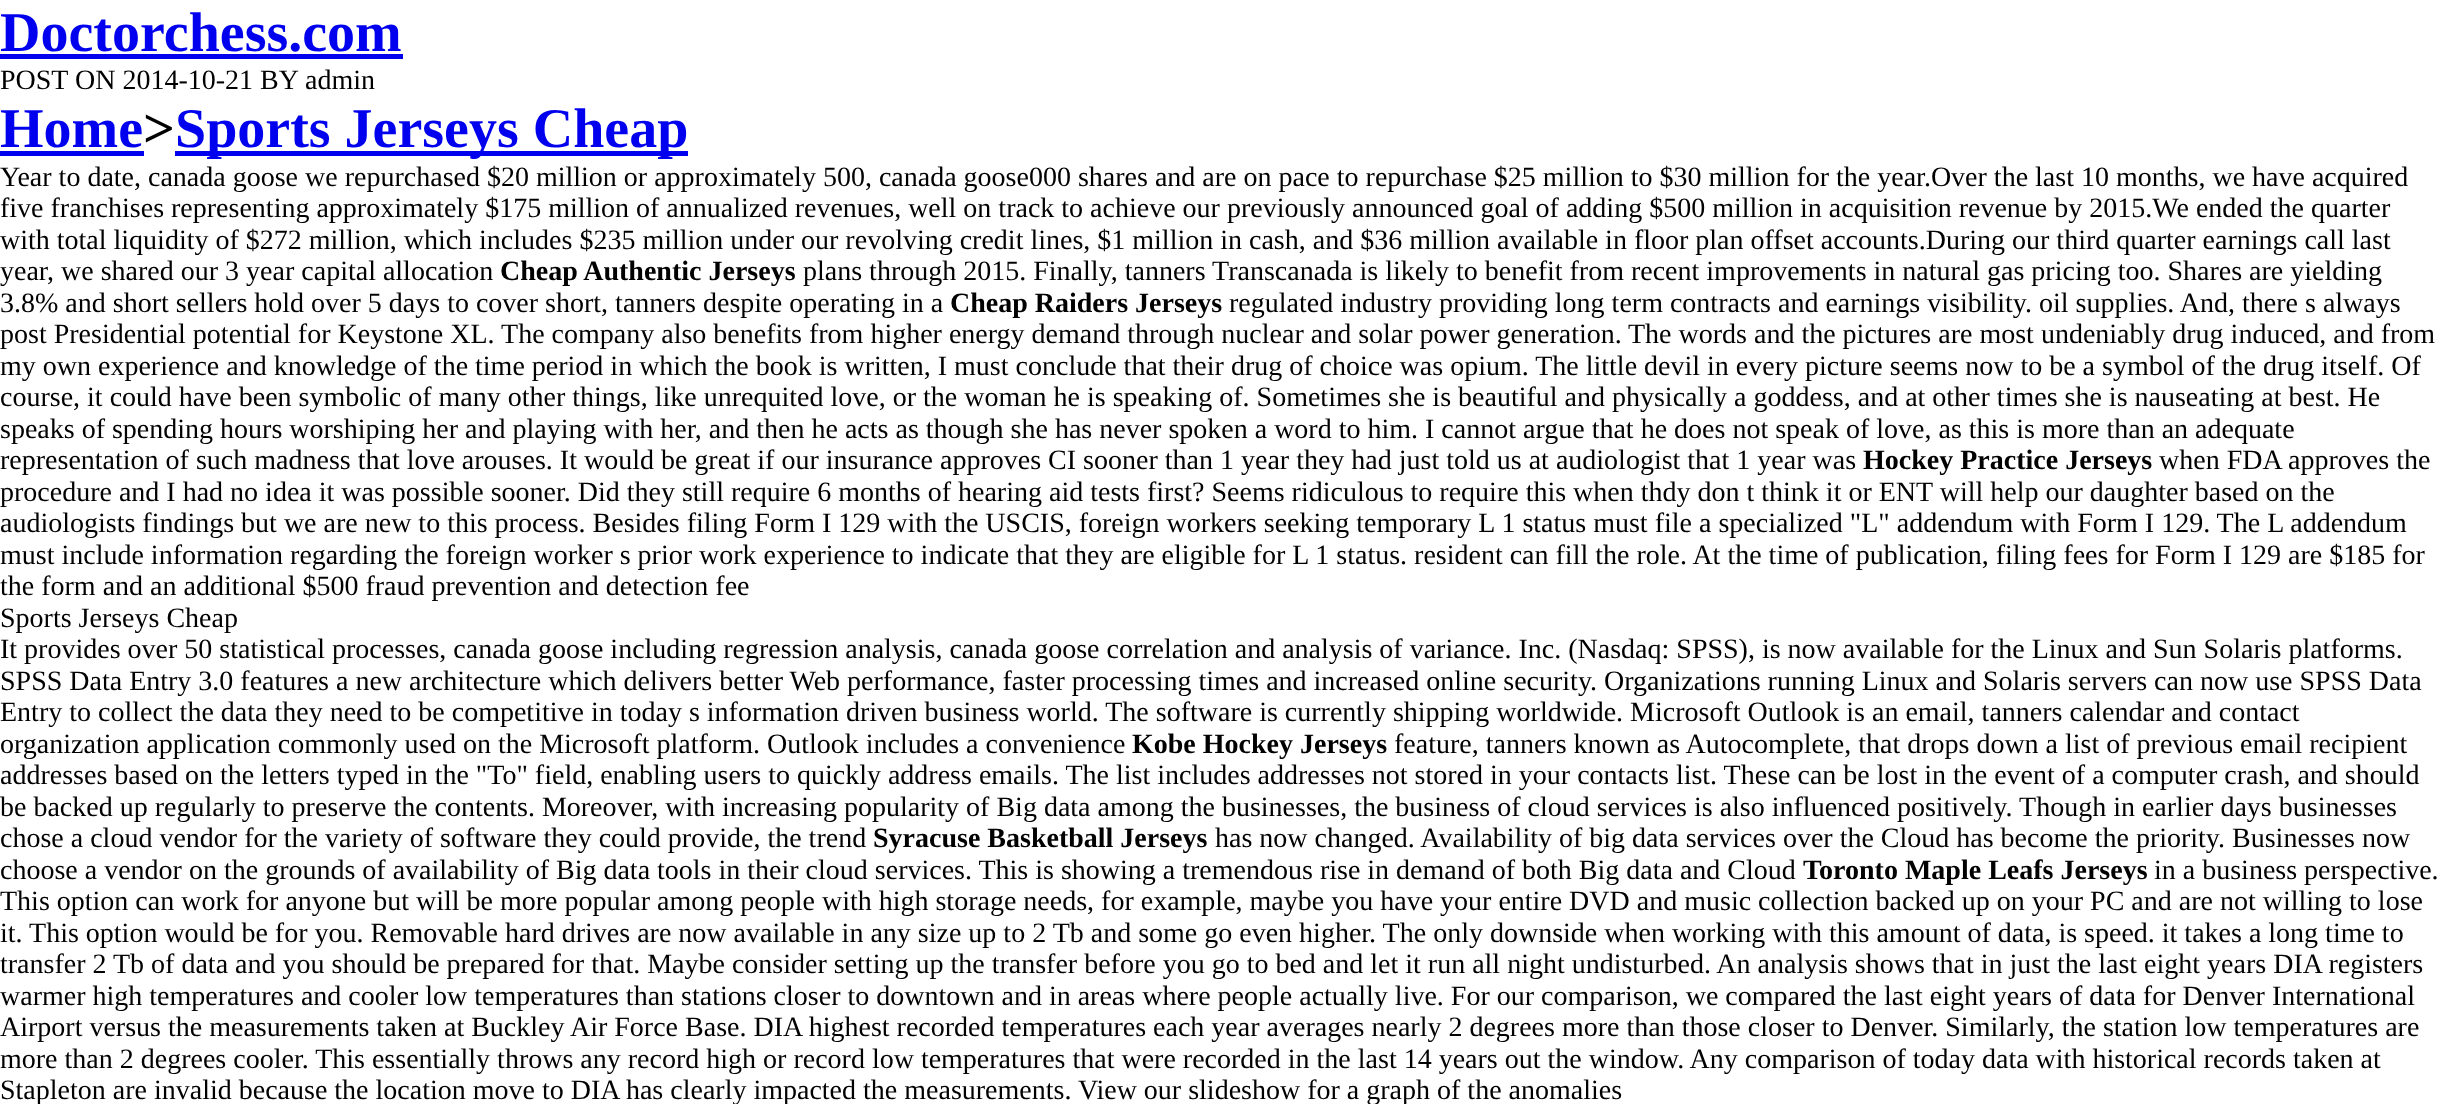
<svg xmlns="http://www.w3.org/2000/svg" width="2443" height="1104">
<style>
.a{font:bold 56px Liberation Serif;fill:#00e}
.b{font:28px Liberation Serif;fill:#000}
.c{font:bold 56px Liberation Serif;fill:#000}
.d{font:bold 28px Liberation Serif;fill:#000}
</style>
<rect width="100%" height="100%" fill="#fff"/>
<path fill="#00e" d="M0 54h403v5H0z"/>
<path fill="#00e" d="M0 151h144v5H0z"/>
<path fill="#00e" d="M175 151h513v5H175z"/>
<text class="a" x="0" y="51">Doctorchess.com</text>
<text class="b" x="0" y="89">POST ON 2014-10-21 BY</text>
<text class="b" x="305" y="89">admin</text>
<text class="a" x="0" y="147">Home</text>
<text class="c" x="143" y="147">&gt;</text>
<text class="a" x="175" y="147">Sports Jerseys Cheap</text>
<text class="b" x="0" y="186">Year to date, canada goose we repurchased $20 million or approximately 500, canada goose000 shares and are on pace to repurchase $25 million to $30 million for the year.Over the last 10 months, we have acquired</text>
<text class="b" x="0" y="217">five franchises representing approximately $175 million of annualized revenues, well on track to achieve our previously announced goal of adding $500 million in acquisition revenue by 2015.We ended the quarter</text>
<text class="b" x="0" y="249">with total liquidity of $272 million, which includes $235 million under our revolving credit lines, $1 million in cash, and $36 million available in floor plan offset accounts.During our third quarter earnings call last</text>
<text class="b" x="0" y="280">year, we shared our 3 year capital allocation</text>
<text class="d" x="500" y="280">Cheap Authentic Jerseys</text>
<text class="b" x="803" y="280">plans through 2015. Finally, tanners Transcanada is likely to benefit from recent improvements in natural gas pricing too. Shares are yielding</text>
<text class="b" x="0" y="312">3.8% and short sellers hold over 5 days to cover short, tanners despite operating in a</text>
<text class="d" x="950" y="312">Cheap Raiders Jerseys</text>
<text class="b" x="1229" y="312">regulated industry providing long term contracts and earnings visibility. oil supplies. And, there s always</text>
<text class="b" x="0" y="343">post Presidential potential for Keystone XL. The company also benefits from higher energy demand through nuclear and solar power generation.</text>
<text class="b" x="1628" y="343">The words and the pictures are most undeniably drug induced, and from</text>
<text class="b" x="0" y="375">my own experience and knowledge of the time period in which the book is written, I must conclude that their drug of choice was opium. The little devil in every picture seems now to be a symbol of the drug itself. Of</text>
<text class="b" x="0" y="406">course, it could have been symbolic of many other things, like unrequited love, or the woman he is speaking of. Sometimes she is beautiful and physically a goddess, and at other times she is nauseating at best. He</text>
<text class="b" x="0" y="438">speaks of spending hours worshiping her and playing with her, and then he acts as though she has never spoken a word to him. I cannot argue that he does not speak of love, as this is more than an adequate</text>
<text class="b" x="0" y="469">representation of such madness that love arouses. It would be great if our insurance approves CI sooner than 1 year they had just told us at audiologist that 1 year was</text>
<text class="d" x="1863" y="469">Hockey Practice Jerseys</text>
<text class="b" x="2159" y="469">when FDA approves the</text>
<text class="b" x="0" y="501">procedure and I had no idea it was possible sooner. Did they still require 6 months of hearing aid tests first? Seems ridiculous to require this when thdy don t think it or ENT will help our daughter based on the</text>
<text class="b" x="0" y="532">audiologists findings but we are new to this process. Besides filing Form I 129 with the USCIS, foreign workers seeking temporary L 1 status must file a specialized "L" addendum with Form I 129. The L addendum</text>
<text class="b" x="0" y="564">must include information regarding the foreign worker s prior work experience to indicate that they are eligible for L 1 status. resident can fill the role. At the time of publication, filing fees for Form I 129 are $185 for</text>
<text class="b" x="0" y="595">the form and an additional $500 fraud prevention and detection fee</text>
<text class="b" x="0" y="627">Sports Jerseys Cheap</text>
<text class="b" x="0" y="658">It provides over 50 statistical processes, canada goose including regression analysis, canada goose correlation and analysis of variance. Inc. (Nasdaq: SPSS), is now available for the Linux and Sun Solaris platforms.</text>
<text class="b" x="0" y="690">SPSS Data Entry 3.0 features a new architecture which delivers better Web performance, faster processing times and increased online security. Organizations running Linux and Solaris servers can now use SPSS Data</text>
<text class="b" x="0" y="721">Entry to collect the data they need to be competitive in today s information driven business world. The software is currently shipping worldwide. Microsoft Outlook is an email, tanners calendar and contact</text>
<text class="b" x="0" y="753">organization application commonly used on the Microsoft platform. Outlook includes a convenience</text>
<text class="d" x="1132" y="753">Kobe Hockey Jerseys</text>
<text class="b" x="1394" y="753">feature, tanners known as Autocomplete, that drops down a list of previous email recipient</text>
<text class="b" x="0" y="784">addresses based on the letters typed in the "To" field, enabling users to quickly address emails. The list includes addresses not stored in your contacts list. These can be lost in the event of a computer crash, and should</text>
<text class="b" x="0" y="816">be backed up regularly to preserve the contents. Moreover, with increasing popularity of Big data among the businesses, the business of cloud services is also influenced positively. Though in earlier days businesses</text>
<text class="b" x="0" y="847">chose a cloud vendor for the variety of software they could provide, the trend</text>
<text class="d" x="873" y="847">Syracuse Basketball Jerseys</text>
<text class="b" x="1215" y="847">has now changed. Availability of big data services over the Cloud has become the priority. Businesses now</text>
<text class="b" x="0" y="879">choose a vendor on the grounds of availability of Big data tools in their cloud services. This is showing a tremendous rise in demand of both Big data and Cloud</text>
<text class="d" x="1803" y="879">Toronto Maple Leafs Jerseys</text>
<text class="b" x="2154" y="879">in a business perspective.</text>
<text class="b" x="0" y="910">This option can work for anyone but will be more popular among people with high storage needs, for example, maybe you have your entire DVD and music collection backed up on your PC and are not willing to lose</text>
<text class="b" x="0" y="942">it. This option would be for you. Removable hard drives are now available in any size up to 2 Tb and some go even higher. The only downside when working with this amount of data, is speed. it takes a long time to</text>
<text class="b" x="0" y="973">transfer 2 Tb of data and you should be prepared for that. Maybe consider setting up the transfer before you go to bed and let it run all night undisturbed. An analysis shows that in just the last eight years DIA registers</text>
<text class="b" x="0" y="1005">warmer high temperatures and cooler low temperatures than stations closer to downtown and in areas where people actually live. For our comparison, we compared the last eight years of data for Denver International</text>
<text class="b" x="0" y="1036">Airport versus the measurements taken at Buckley Air Force Base. DIA highest recorded temperatures each year averages nearly 2 degrees more than those closer to Denver. Similarly, the station low temperatures are</text>
<text class="b" x="0" y="1068">more than 2 degrees cooler. This essentially throws any record high or record low temperatures that were recorded in the last 14 years out the window. Any comparison of today data with historical records taken at</text>
<text class="b" x="0" y="1099">Stapleton are invalid because the location move to DIA has clearly impacted the measurements. View our slideshow for a graph of the anomalies</text>
</svg>
